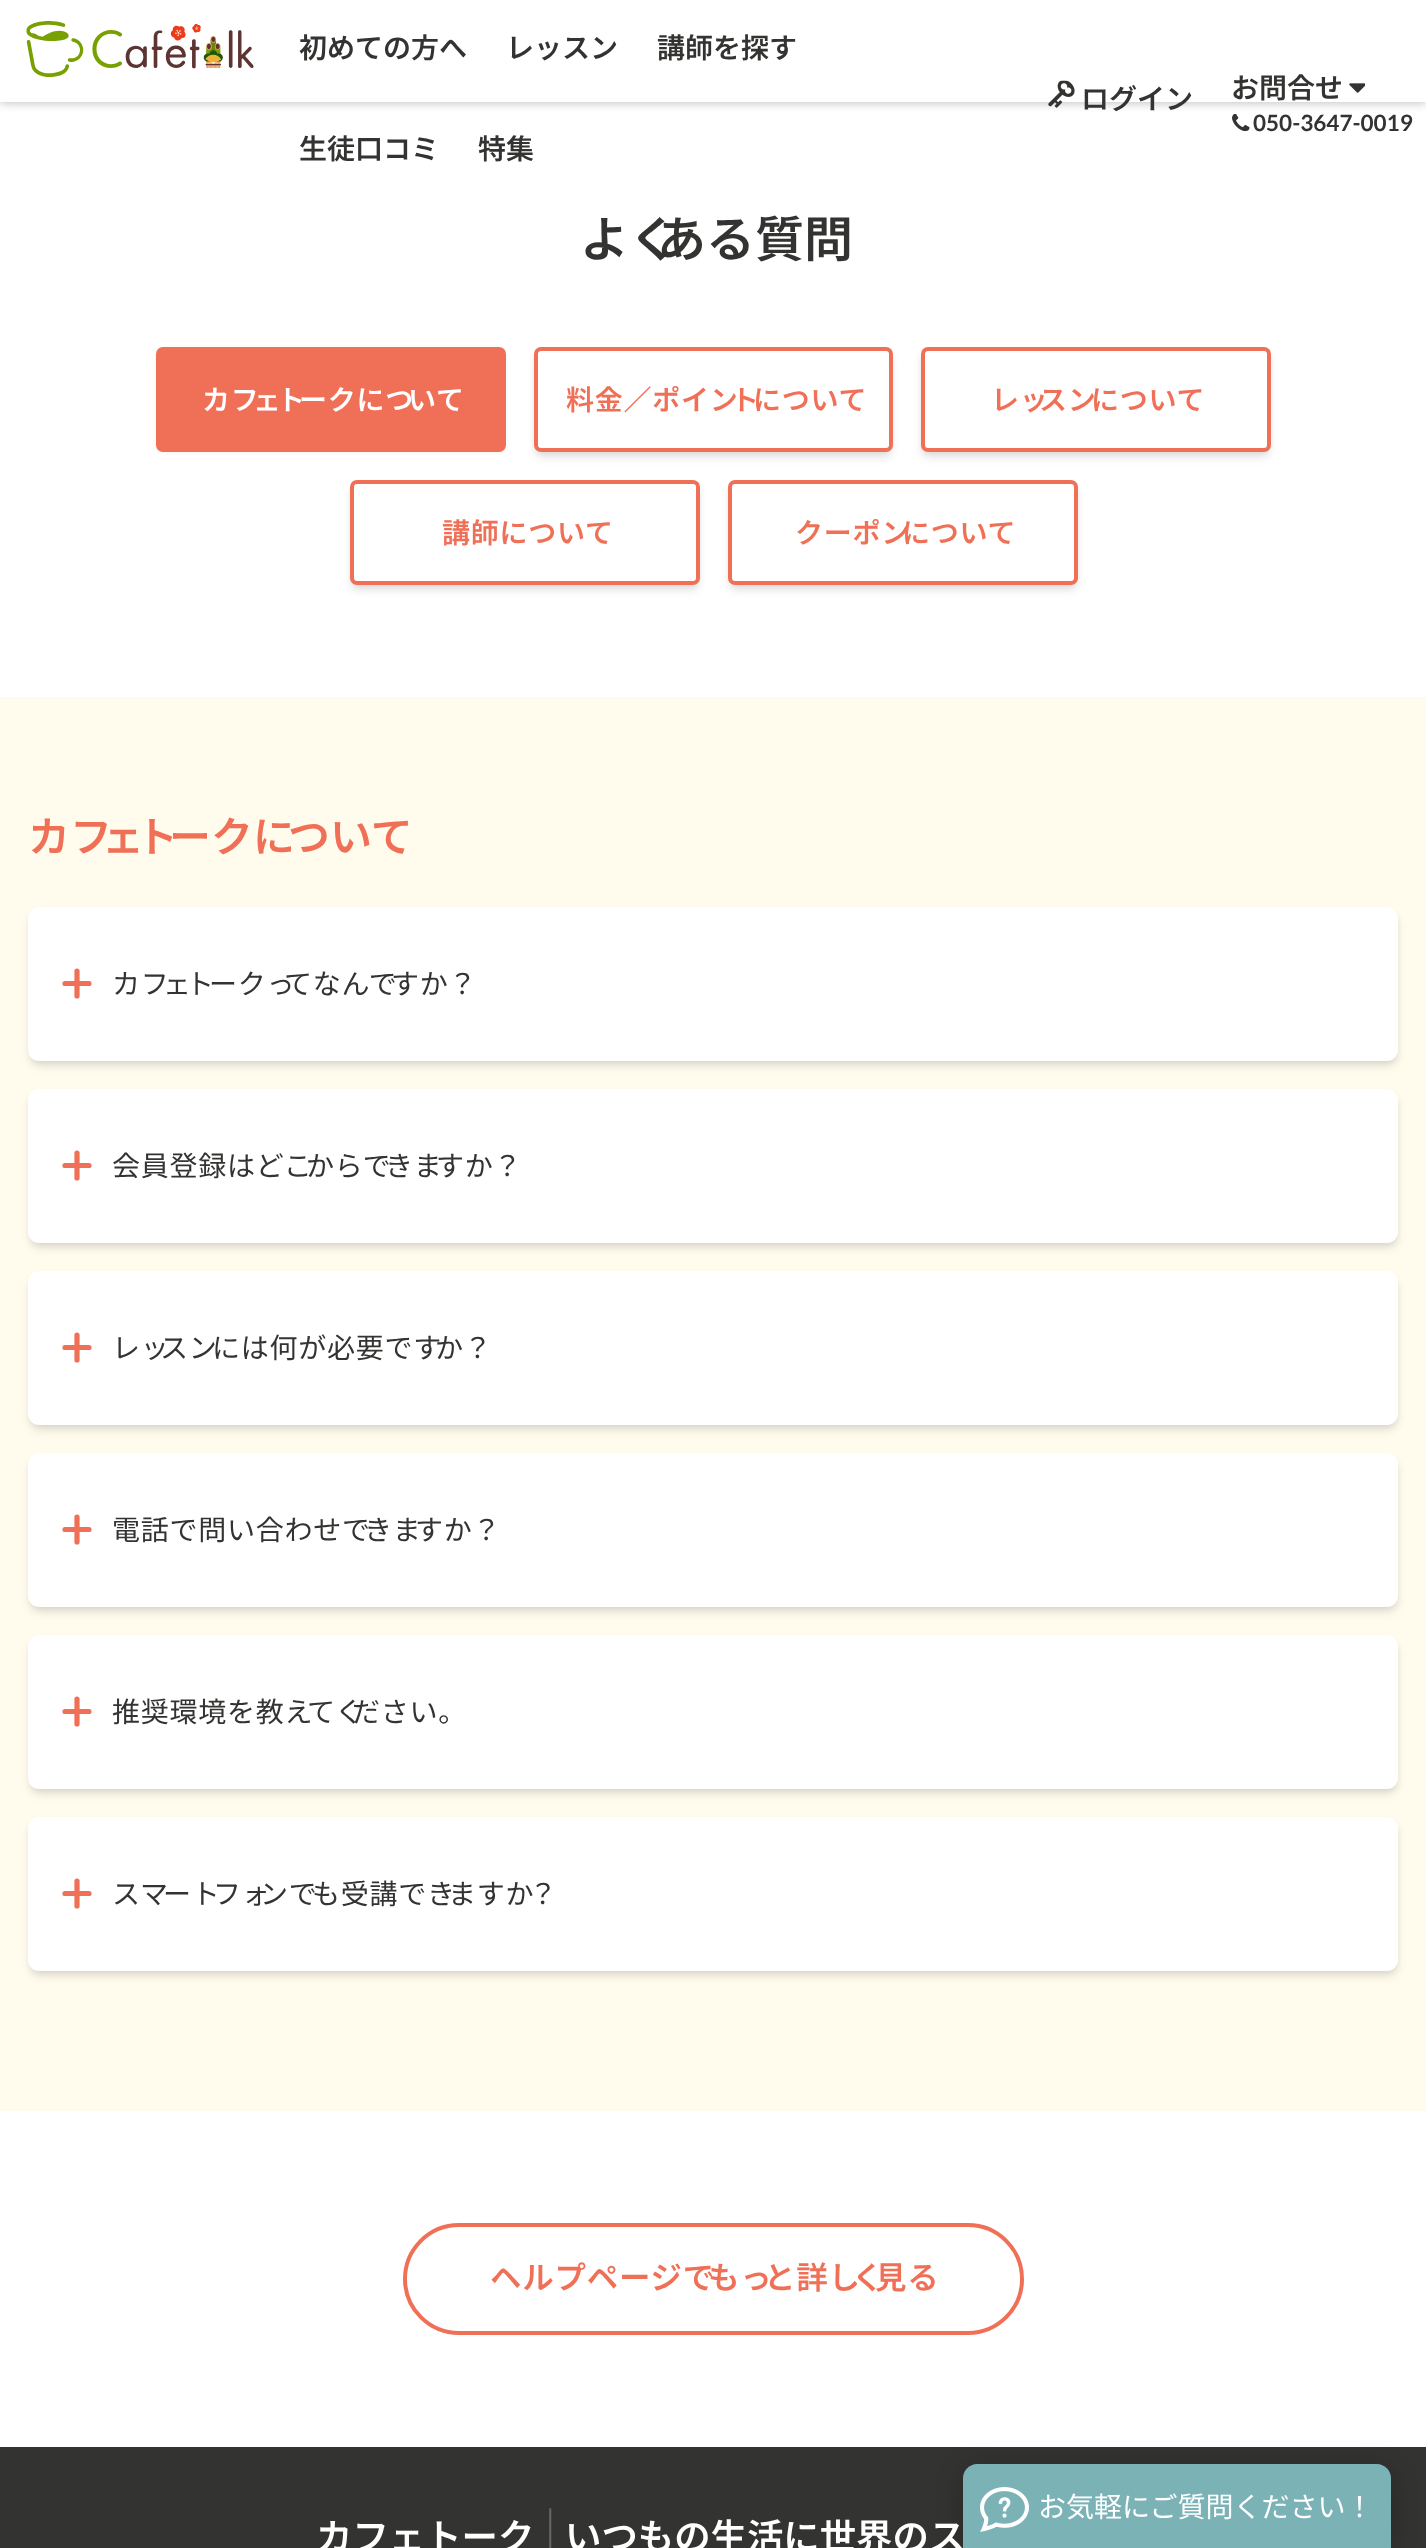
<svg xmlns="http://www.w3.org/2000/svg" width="1426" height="2548">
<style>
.a{font:600 28px Noto Sans JP;fill:#333332}
.b{font:bold 22.5px Lato;fill:#333332}
.c{font:600 49px Noto Sans JP;fill:#333332}
.d{font:600 28px Noto Sans JP;letter-spacing:0.75px;fill:#fff}
.e{font:600 28px Noto Sans JP;letter-spacing:0.75px;fill:#f07057}
.f{font:600 42px Noto Sans JP;fill:#f07057}
.g{font:28px Noto Sans JP;letter-spacing:0.75px;fill:#333332}
.h{font:600 31.5px Noto Sans JP;letter-spacing:0.75px;fill:#f07057}
.i{font:600 36.4px Noto Sans JP;fill:#fff}
.j{font:300 55px Lato;fill:#666}
.k{font:28px Noto Sans JP;fill:#fff}
</style>
<rect width="100%" height="100%" fill="#fff"/>
<path fill="#00000040" filter="blur(5px)" d="M0 2h1426v101H0z"/>
<path fill="#fff" d="M0 0h1426v102H0z"/>
<image href="1.png" x="26" y="21" width="228" height="56"/>
<image href="2.png" x="1048" y="80" width="27" height="28"/>
<image href="3.png" x="1349" y="83" width="16" height="10"/>
<image href="4.png" x="1232" y="114" width="18" height="17"/>
<rect fill="#0000000d" filter="blur(2px)" x="156" y="348" width="350" height="105" rx="7"/>
<rect fill="#f07057" stroke="#f07057" stroke-width="4" x="158" y="349" width="346" height="101" rx="5"/>
<rect fill="#0000001a" filter="blur(3.5px)" x="537" y="354" width="352" height="98" rx="4"/>
<rect fill="#0000001a" filter="blur(5px)" x="536" y="355" width="355" height="102" rx="5"/>
<rect fill="#fff" stroke="#f07057" stroke-width="4" x="536" y="349" width="355" height="101" rx="5"/>
<rect fill="#0000001a" filter="blur(3.5px)" x="924" y="354" width="343" height="98" rx="4"/>
<rect fill="#0000001a" filter="blur(5px)" x="922" y="355" width="347" height="102" rx="5"/>
<rect fill="#fff" stroke="#f07057" stroke-width="4" x="923" y="349" width="346" height="101" rx="5"/>
<rect fill="#0000001a" filter="blur(3.5px)" x="354" y="487" width="343" height="98" rx="4"/>
<rect fill="#0000001a" filter="blur(5px)" x="352" y="488" width="346" height="102" rx="5"/>
<rect fill="#fff" stroke="#f07057" stroke-width="4" x="352" y="482" width="346" height="101" rx="5"/>
<rect fill="#0000001a" filter="blur(3.5px)" x="732" y="487" width="343" height="98" rx="4"/>
<rect fill="#0000001a" filter="blur(5px)" x="730" y="488" width="346" height="102" rx="5"/>
<rect fill="#fff" stroke="#f07057" stroke-width="4" x="730" y="482" width="346" height="101" rx="5"/>
<path fill="#fffbed" d="M0 697h1426v1414H0z"/>
<rect fill="#0000001a" filter="blur(3.5px)" x="32" y="914" width="1363" height="147" rx="7"/>
<rect fill="#0000001a" filter="blur(5px)" x="30" y="915" width="1367" height="151" rx="9"/>
<rect fill="#fff" x="28" y="907" width="1370" height="154" rx="11"/>
<path fill="none" stroke="#f07057" stroke-width="5.2" stroke-linecap="round" stroke-linejoin="round" d="M77 971v25m-12-12.5h24"/>
<rect fill="#0000001a" filter="blur(3.5px)" x="32" y="1096" width="1363" height="147" rx="7"/>
<rect fill="#0000001a" filter="blur(5px)" x="30" y="1097" width="1367" height="151" rx="9"/>
<rect fill="#fff" x="28" y="1089" width="1370" height="154" rx="11"/>
<path fill="none" stroke="#f07057" stroke-width="5.2" stroke-linecap="round" stroke-linejoin="round" d="M77 1153v25m-12-12.5h24"/>
<rect fill="#0000001a" filter="blur(3.5px)" x="32" y="1278" width="1363" height="147" rx="7"/>
<rect fill="#0000001a" filter="blur(5px)" x="30" y="1279" width="1367" height="151" rx="9"/>
<rect fill="#fff" x="28" y="1271" width="1370" height="154" rx="11"/>
<path fill="none" stroke="#f07057" stroke-width="5.2" stroke-linecap="round" stroke-linejoin="round" d="M77 1335v25m-12-12.5h24"/>
<rect fill="#0000001a" filter="blur(3.5px)" x="32" y="1460" width="1363" height="147" rx="7"/>
<rect fill="#0000001a" filter="blur(5px)" x="30" y="1461" width="1367" height="151" rx="9"/>
<rect fill="#fff" x="28" y="1453" width="1370" height="154" rx="11"/>
<path fill="none" stroke="#f07057" stroke-width="5.2" stroke-linecap="round" stroke-linejoin="round" d="M77 1517v25m-12-12.5h24"/>
<rect fill="#0000001a" filter="blur(3.5px)" x="32" y="1642" width="1363" height="147" rx="7"/>
<rect fill="#0000001a" filter="blur(5px)" x="30" y="1643" width="1367" height="151" rx="9"/>
<rect fill="#fff" x="28" y="1635" width="1370" height="154" rx="11"/>
<path fill="none" stroke="#f07057" stroke-width="5.2" stroke-linecap="round" stroke-linejoin="round" d="M77 1699v25m-12-12.5h24"/>
<rect fill="#0000001a" filter="blur(3.5px)" x="32" y="1824" width="1363" height="147" rx="7"/>
<rect fill="#0000001a" filter="blur(5px)" x="30" y="1825" width="1367" height="151" rx="9"/>
<rect fill="#fff" x="28" y="1817" width="1370" height="154" rx="11"/>
<path fill="none" stroke="#f07057" stroke-width="5.2" stroke-linecap="round" stroke-linejoin="round" d="M77 1881v25m-12-12.5h24"/>
<rect fill="none" stroke="#f07057" stroke-width="4" x="405" y="2225" width="617" height="108" rx="54"/>
<path fill="#333332" d="M0 2447h1426v101H0z"/>
<rect fill="#00000040" filter="blur(13px)" x="963" y="2469" width="428" height="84" rx="14"/>
<path fill="#7bb2b6" d="M977 2464h400c7.5 0 14 6.5 14 14v70h-428v-70c0-7.5 6.5-14 14-14z"/>
<image href="5.png" x="980" y="2487" width="49" height="45"/>
<text class="a" x="299" y="58">初めての方へ</text>
<text class="a" x="506" y="58">レッスン</text>
<text class="a" x="657" y="58">講師を探す</text>
<text class="a" x="299" y="159">生徒口コミ</text>
<text class="a" x="478" y="159">特集</text>
<text class="a" x="1081" y="109">ログイン</text>
<text class="a" x="1231" y="98">お問合せ</text>
<text class="b" x="1253" y="131">050-3647-0019</text>
<text class="c" x="580" y="257">よく</text>
<text class="c" x="657" y="257">ある質問</text>
<text class="d" x="202" y="410">カフ</text>
<text class="d" x="253" y="410">ェ</text>
<text class="d" x="277" y="410">ト</text>
<text class="d" x="299" y="410">ークにつ</text>
<text class="d" x="408" y="410">いて</text>
<text class="e" x="566" y="410">料金／ポイン</text>
<text class="e" x="731" y="410">ト</text>
<text class="e" x="753" y="410">について</text>
<text class="e" x="991" y="410">レッ</text>
<text class="e" x="1039" y="410">スン</text>
<text class="e" x="1091" y="410">について</text>
<text class="e" x="442" y="543">講師について</text>
<text class="e" x="795" y="543">クーポン</text>
<text class="e" x="902" y="543">について</text>
<text class="f" x="28" y="852">カフ</text>
<text class="f" x="102" y="852">ェ</text>
<text class="f" x="136" y="852">ト</text>
<text class="f" x="169" y="852">ークに</text>
<text class="f" x="288" y="852">ついて</text>
<text class="g" x="112" y="994">カフ</text>
<text class="g" x="163" y="994">ェ</text>
<text class="g" x="186" y="994">ト</text>
<text class="g" x="209" y="994">ークっ</text>
<text class="g" x="284" y="994">てなんで</text>
<text class="g" x="391" y="994">すか？</text>
<text class="g" x="112" y="1176">会員登録はどこ</text>
<text class="g" x="306" y="1176">からで</text>
<text class="g" x="385" y="1176">きま</text>
<text class="g" x="436" y="1176">すか？</text>
<text class="g" x="112" y="1358">レッ</text>
<text class="g" x="160" y="1358">スン</text>
<text class="g" x="212" y="1358">には何が必要です</text>
<text class="g" x="435" y="1358">か？</text>
<text class="g" x="112" y="1540">電話で問い合わせで</text>
<text class="g" x="364" y="1540">きま</text>
<text class="g" x="415" y="1540">すか？</text>
<text class="g" x="112" y="1722">推奨環境を教え</text>
<text class="g" x="307" y="1722">てく</text>
<text class="g" x="352" y="1722">ださい。</text>
<text class="g" x="112" y="1904">スマ</text>
<text class="g" x="163" y="1904">ート</text>
<text class="g" x="213" y="1904">フォ</text>
<text class="g" x="260" y="1904">ンで</text>
<text class="g" x="312" y="1904">も受講でき</text>
<text class="g" x="448" y="1904">ますか</text>
<text class="g" x="529" y="1904">？</text>
<text class="h" x="490" y="2289">ヘルプページで</text>
<text class="h" x="708" y="2289">もっ</text>
<text class="h" x="764" y="2289">と詳し</text>
<text class="h" x="852" y="2289">く</text>
<text class="h" x="875" y="2289">見る</text>
<text class="i" x="316" y="2550">カフェトーク</text>
<text class="j" x="542" y="2550">|</text>
<text class="i" x="565" y="2550">いつもの生活に世界のス</text>
<text class="k" x="1038" y="2517">お気軽にご質問ください！</text>
</svg>
